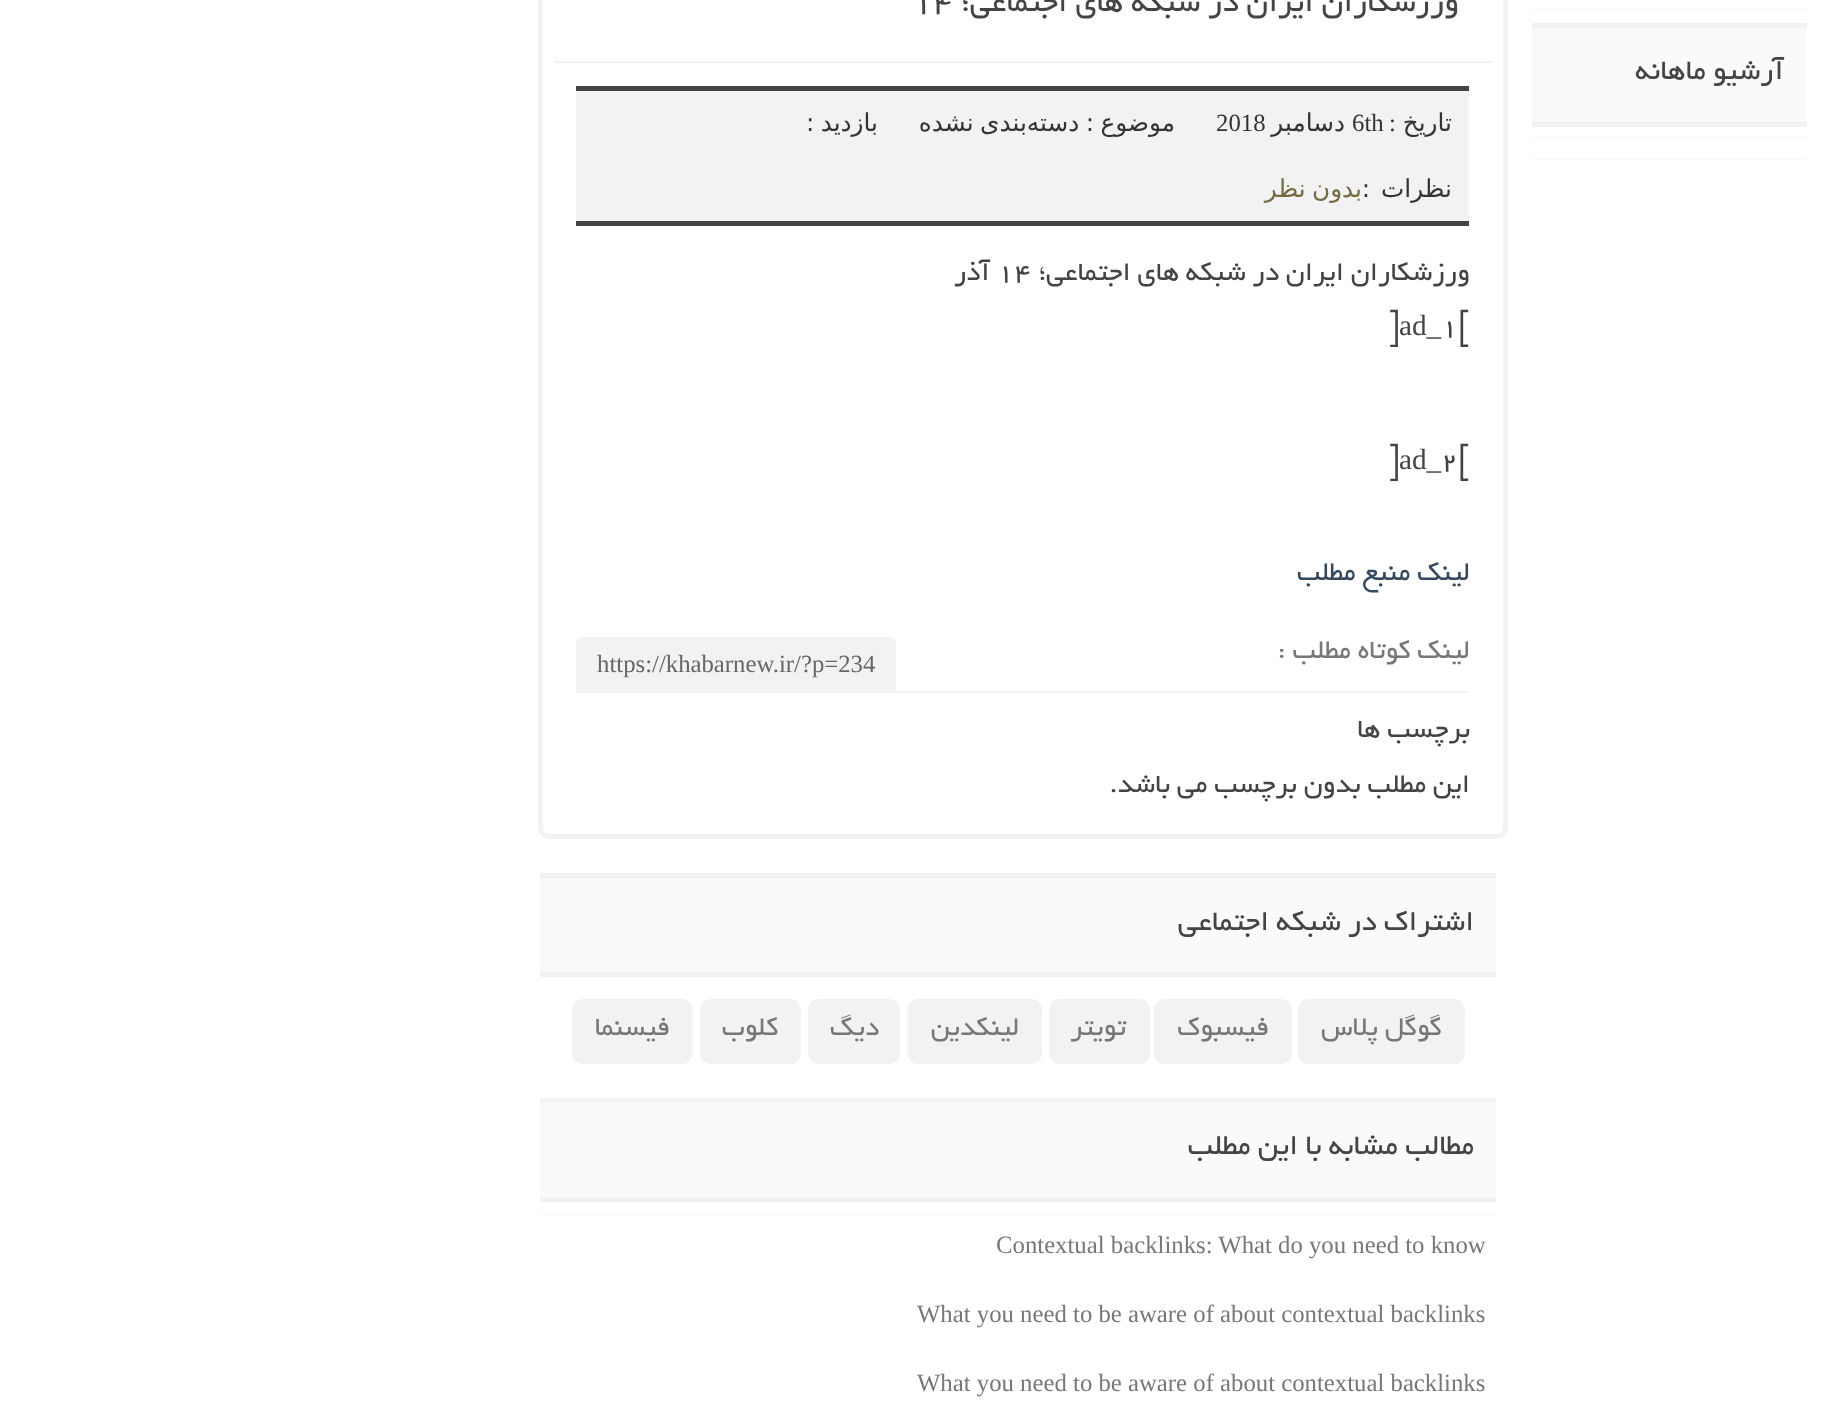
<svg xmlns="http://www.w3.org/2000/svg" width="1843" height="1417">
<style>
.a{font:31.5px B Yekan;direction:rtl;fill:#444}
.b{font:33.75px B Yekan;direction:rtl;fill:#444}
.c{font:33.75px B Yekan;fill:#444}
.d{font:24.75px DejaVu Sans;direction:rtl;fill:#333}
.e{font:24.75px Liberation Serif;direction:rtl;fill:#333}
.f{font:24.75px Liberation Serif;fill:#333}
.g{font:24.75px DejaVu Sans;direction:rtl;fill:#746940}
.h{font:29.25px B Yekan;direction:rtl;fill:#444}
.i{font:29.25px B Yekan;fill:#444}
.j{font:29.25px Liberation Serif;fill:#444}
.k{font:29.25px B Yekan;direction:rtl;fill:#34495e}
.l{font:29.25px B Yekan;direction:rtl;fill:#777}
.m{font:24.75px Liberation Serif;fill:#666}
.n{font:24.75px Liberation Serif;fill:#777}
</style>
<rect width="100%" height="100%" fill="#fff"/>
<path fill="#fafafa" d="M1532 9h275v2H1532z"/>
<path fill="#fafafa" d="M1532 28h275v94H1532z"/>
<path fill="#f2f2f2" d="M1532 23h275v5H1532z"/>
<path fill="#f2f2f2" d="M1532 122h275v5H1532z"/>
<path fill="#fafafa" d="M1532 137h275v2H1532z"/>
<path fill="#fafafa" d="M1532 158h275v2H1532z"/>
<rect fill="none" stroke="#f2f2f2" stroke-width="5" x="540.5" y="-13.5" width="965" height="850" rx="8.5"/>
<path fill="#f2f2f2" d="M554 61h938v2H554z"/>
<path fill="#f2f2f2" d="M576 91h893v130H576z"/>
<path fill="#444" d="M576 86h893v5H576z"/>
<path fill="#444" d="M576 221h893v5H576z"/>
<path fill="#f2f2f2" d="M583 637h306c4 0 7 3 7 7v49h-320v-49c0-4 3-7 7-7z"/>
<path fill="#f2f2f2" d="M896 691h573v2H896z"/>
<path fill="#fafafa" d="M540 878h956v94H540z"/>
<path fill="#f2f2f2" d="M540 873h956v5H540z"/>
<path fill="#f2f2f2" d="M540 972h956v5H540z"/>
<rect fill="#f2f2f2" x="1298" y="999" width="167" height="65" rx="11"/>
<rect fill="#f2f2f2" x="1154" y="999" width="138" height="65" rx="11"/>
<rect fill="#f2f2f2" x="1049" y="999" width="101" height="65" rx="11"/>
<rect fill="#f2f2f2" x="907" y="999" width="135" height="65" rx="11"/>
<rect fill="#f2f2f2" x="808" y="999" width="92" height="65" rx="11"/>
<rect fill="#f2f2f2" x="700" y="999" width="101" height="65" rx="11"/>
<rect fill="#f2f2f2" x="572" y="999" width="121" height="65" rx="11"/>
<path fill="#fafafa" d="M540 1103h956v94H540z"/>
<path fill="#f2f2f2" d="M540 1098h956v5H540z"/>
<path fill="#f2f2f2" d="M540 1197h956v5H540z"/>
<path fill="#fafafa" d="M540 1213h956v2H540z"/>
<text class="a" x="1784" y="79">آرشیو ماهانه</text>
<text class="b" x="1459" y="11">ورزشکاران ایران در شبکه های اجتماعی؛</text>
<text class="c" x="913" y="11">۱۴</text>
<text class="d" x="1452" y="131">تاریخ</text>
<text class="e" x="1396" y="131">:</text>
<text class="f" x="1352" y="131">6th</text>
<text class="d" x="1345" y="131">دسامبر</text>
<text class="f" x="1216" y="131">2018</text>
<text class="d" x="1175" y="131" word-spacing="-1.5">موضوع : دسته‌بندی نشده</text>
<text class="d" x="878" y="131" word-spacing="-1.5">بازدید :</text>
<text class="d" x="1452" y="197" word-spacing="3">نظرات :</text>
<text class="g" x="1362" y="197" word-spacing="-1.5">بدون نظر</text>
<text class="h" x="1470" y="280">ورزشکاران ایران در شبکه های اجتماعی؛</text>
<text class="i" x="997" y="280">۱۴</text>
<text class="h" x="990" y="280">آذر</text>
<text class="i" x="1441" y="335">1[</text>
<text class="j" x="1399" y="335">ad_</text>
<text class="i" x="1388" y="335">]</text>
<text class="i" x="1441" y="469">2[</text>
<text class="j" x="1399" y="469">ad_</text>
<text class="i" x="1388" y="469">]</text>
<text class="k" x="1470" y="580">لینک منبع مطلب</text>
<text class="l" x="1470" y="658">لینک کوتاه مطلب :</text>
<text class="m" x="597" y="672">https://khabarnew.ir/?p=234</text>
<text class="h" x="1470" y="737">برچسب ها</text>
<text class="h" x="1470" y="792">این مطلب بدون برچسب می باشد.</text>
<text class="a" x="1474" y="930">اشتراک در شبکه اجتماعی</text>
<text class="l" x="1442" y="1035">گوگل پلاس</text>
<text class="l" x="1269" y="1035">فیسبوک</text>
<text class="l" x="1126" y="1035">تویتر</text>
<text class="l" x="1019" y="1035">لینکدین</text>
<text class="l" x="879" y="1035">دیگ</text>
<text class="l" x="778" y="1035">کلوب</text>
<text class="l" x="670" y="1035">فیسنما</text>
<text class="a" x="1474" y="1154">مطالب مشابه با این مطلب</text>
<text class="n" x="996" y="1253">Contextual backlinks: What do you need to know</text>
<text class="n" x="917" y="1322">What you need to be aware of about contextual backlinks</text>
<text class="n" x="917" y="1391">What you need to be aware of about contextual backlinks</text>
</svg>
